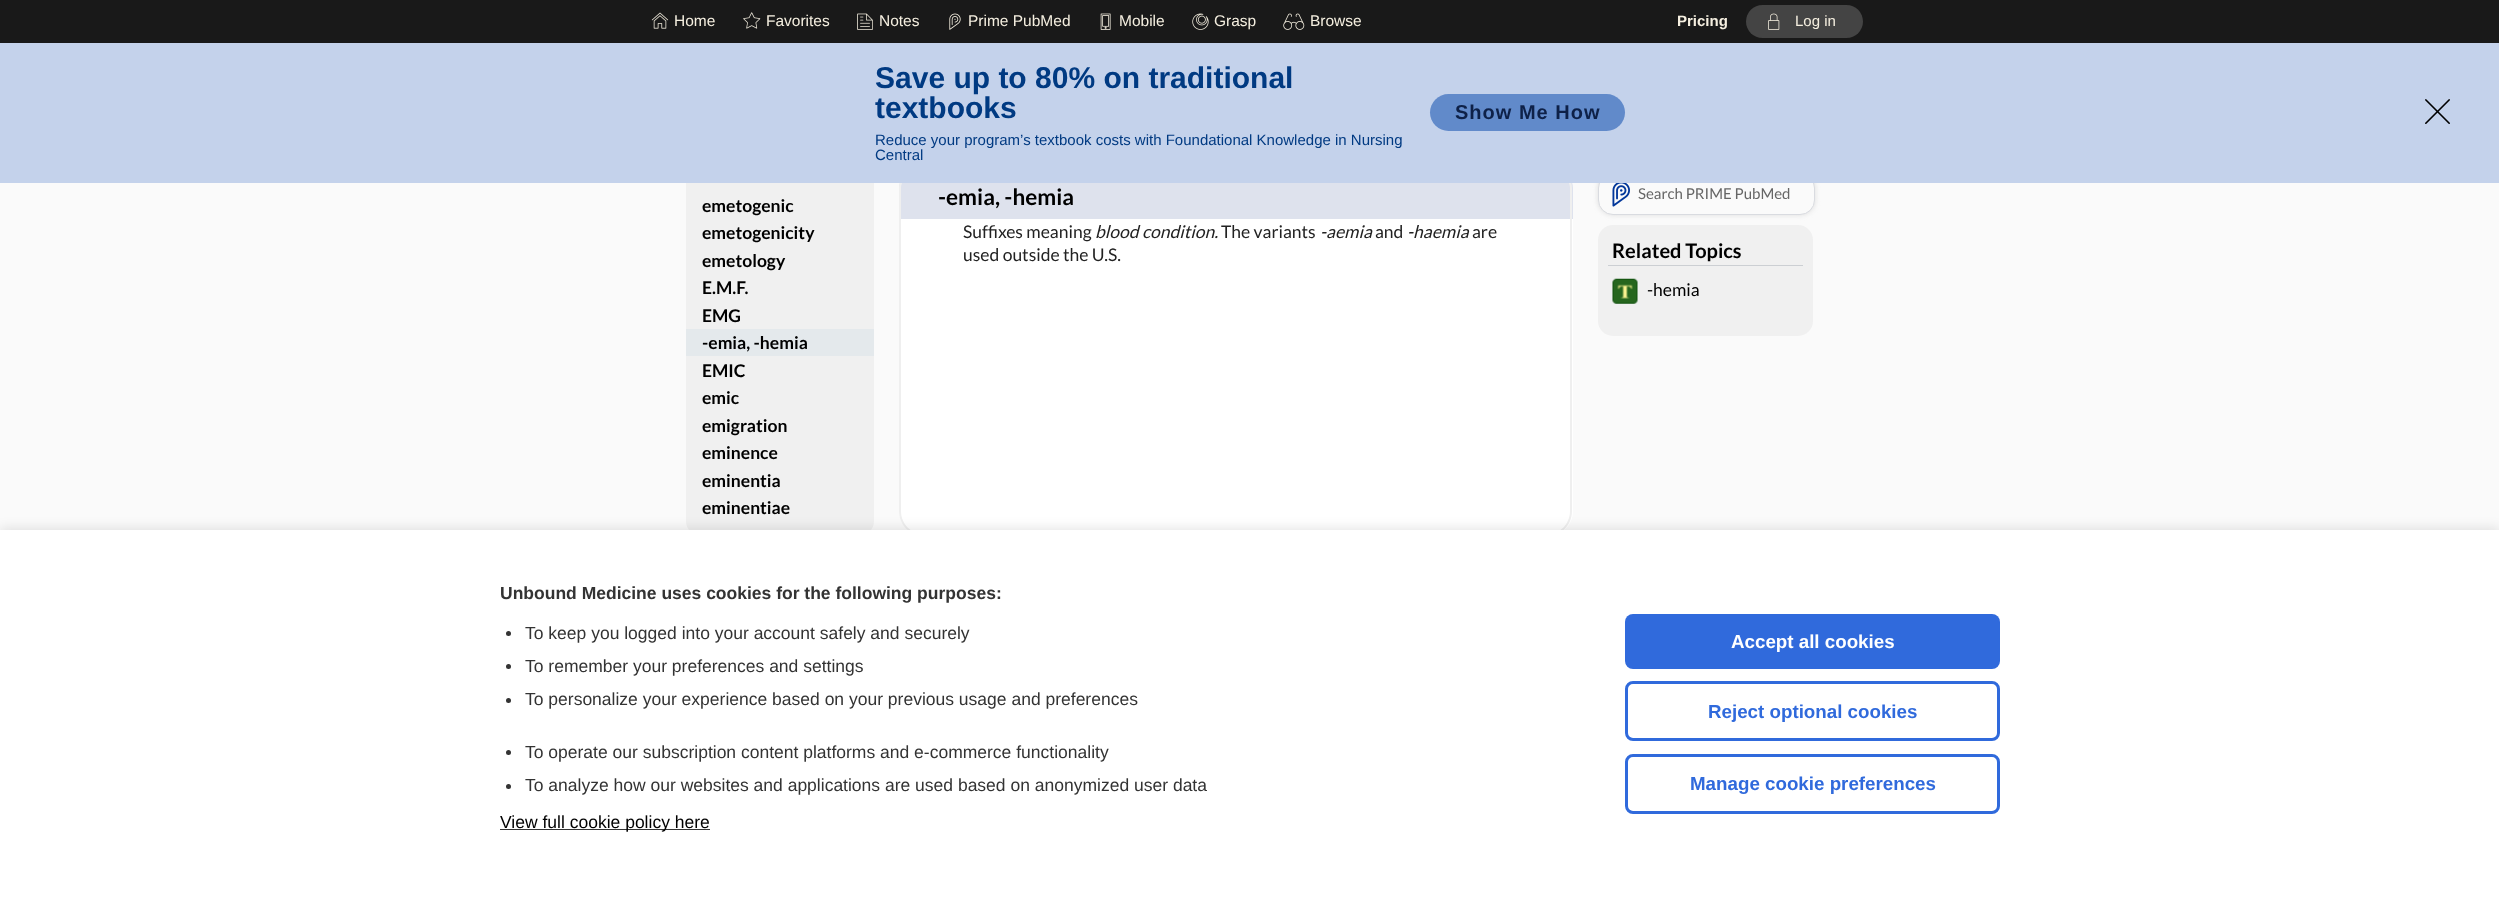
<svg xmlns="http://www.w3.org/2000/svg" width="2499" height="897">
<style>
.a{font:15.5px Liberation Sans;fill:#f5efe0}
.b{font:bold 15px Liberation Sans;fill:#f5efe0}
.c{font:15px Liberation Sans;fill:#f5efe0}
.d{font:bold 30px Liberation Sans;fill:#003a82}
.e{font:15px Liberation Sans;fill:#003a82}
.f{font:bold 20px Liberation Sans;letter-spacing:1px;fill:#0e2148}
.g{font:15px Lato;fill:#666}
.h{font:bold 20px Lato;fill:#000}
.i{font:17.5px Lato;fill:#000}
.j{font:bold 17.5px Lato;fill:#000}
.k{font:bold 22.5px Lato;fill:#000}
.l{font:17.5px Lato;fill:#222}
.m{font:italic 17.5px Lato;fill:#222}
.n{font:bold 17.5px Liberation Sans;fill:#333}
.o{font:17.5px Liberation Sans;fill:#333}
.p{font:17.5px Liberation Sans;fill:#000}
.q{font:bold 18.75px Liberation Sans;fill:#fff}
.r{font:bold 18.75px Liberation Sans;fill:#306adc}
</style>
<rect width="100%" height="100%" fill="#fafafa"/>
<path fill="#191919" d="M0 0h2499v43H0z"/>
<image href="1.png" x="651" y="12" width="18" height="17"/>
<image href="2.png" x="743" y="12" width="18" height="17"/>
<image href="3.png" x="857" y="13" width="16" height="17"/>
<image href="4.png" x="949" y="13" width="12" height="17"/>
<image href="5.png" x="1100" y="13" width="11" height="17"/>
<image href="6.png" x="1192" y="13" width="17" height="17"/>
<image href="7.png" x="1283" y="13" width="22" height="17"/>
<rect fill="#444" x="1746" y="5" width="117" height="33" rx="16.5"/>
<image href="8.png" x="1768" y="13" width="12" height="17"/>
<rect fill="#ddd" filter="blur(2.5px)" x="1598" y="173" width="217" height="42" rx="15"/>
<rect fill="#fafafa" stroke="#d9dbe0" x="1598.5" y="173.5" width="216" height="41" rx="14.5"/>
<rect fill="#f0f0f0" x="686" y="149" width="188" height="387" rx="15"/>
<path fill="#fff" d="M899 170h674v341c0 14-11 25-25 25h-624c-14 0-25-11-25-25z"/>
<path fill="#efefef" fill-rule="evenodd" d="M899 170h673v341c0 14-11 25-24 25h-624c-14 0-25-11-25-25zm2 0h669v341c0 13-10 23-22 23h-624c-13 0-23-10-23-23z"/>
<path fill="#fafafa" d="M899 183h674v27H899z"/>
<path fill="#dee2ed" d="M914 173h644c8.5 0 15 6.5 15 15v31h-674v-31c0-8.5 6.5-15 15-15z"/>
<path fill="#efefef" fill-rule="evenodd" d="M914 172h644c8 0 14 7 14 16v31h-673v-31c0-9 6-16 15-16zm0 3h644c6 0 12 6 12 13v31h-669v-31c0-7 6-13 13-13z"/>
<path fill="#c4d2eb" d="M0 43h2499v140H0z"/>
<rect fill="#618aca" x="1430" y="94" width="195" height="37" rx="18.5"/>
<image href="9.png" x="2425" y="99" width="25" height="25"/>
<image href="10.png" x="1612" y="183" width="18" height="24"/>
<rect fill="#f0f0f0" x="1598" y="225" width="215" height="111" rx="15"/>
<path fill="#cccfd3" d="M1608 265h195v1H1608z"/>
<image href="11.png" x="1612" y="278" width="26" height="26"/>
<path fill="#e4e9ec" d="M686 329h188v27H686z"/>
<path fill="#0000001a" filter="blur(6px)" d="M0 528h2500v367H0z"/>
<path fill="#fff" d="M0 530h2499v367H0z"/>
<circle fill="#333" cx="508.5" cy="633.5" r="2.5"/>
<circle fill="#333" cx="508.5" cy="666.5" r="2.5"/>
<circle fill="#333" cx="508.5" cy="700.5" r="2.5"/>
<circle fill="#333" cx="508.5" cy="752.5" r="2.5"/>
<circle fill="#333" cx="508.5" cy="786.5" r="2.5"/>
<path fill="#333" d="M500 829h210v1H500z"/>
<rect fill="#306adc" x="1625" y="614" width="375" height="55" rx="8"/>
<rect fill="none" stroke="#306adc" stroke-width="3" x="1626.5" y="682.5" width="372" height="57" rx="6.5"/>
<rect fill="none" stroke="#306adc" stroke-width="3" x="1626.5" y="755.5" width="372" height="57" rx="6.5"/>
<text class="a" x="674" y="26">Home</text>
<text class="a" x="766" y="26">Favorites</text>
<text class="a" x="879" y="26">Notes</text>
<text class="a" x="968" y="26">Prime PubMed</text>
<text class="a" x="1119" y="26">Mobile</text>
<text class="a" x="1214" y="26">Grasp</text>
<text class="a" x="1310" y="26">Browse</text>
<text class="b" x="1677" y="26">Pricing</text>
<text class="c" x="1795" y="26">Log in</text>
<text class="d" x="875" y="88">Save up to 80% on traditional</text>
<text class="d" x="875" y="118">textbooks</text>
<text class="e" x="875" y="145">Reduce your program’s textbook costs with Foundational Knowledge in Nursing</text>
<text class="e" x="875" y="160">Central</text>
<text class="f" x="1455" y="119">Show Me How</text>
<text class="g" x="1638" y="199">Search PRIME PubMed</text>
<text class="h" x="1612" y="258">Related Topics</text>
<text class="i" x="1647" y="296">-hemia</text>
<text class="j" x="702" y="212">emetogenic</text>
<text class="j" x="702" y="239">emetogenicity</text>
<text class="j" x="702" y="267">emetology</text>
<text class="j" x="702" y="294">E.M.F.</text>
<text class="j" x="702" y="322">EMG</text>
<text class="j" x="702" y="349">-emia, -hemia</text>
<text class="j" x="702" y="377">EMIC</text>
<text class="j" x="702" y="404">emic</text>
<text class="j" x="702" y="432">emigration</text>
<text class="j" x="702" y="459">eminence</text>
<text class="j" x="702" y="487">eminentia</text>
<text class="j" x="702" y="514">eminentiae</text>
<text class="k" x="938" y="205">-emia, -hemia</text>
<text class="l" x="963" y="238">Suffixes meaning</text>
<text class="m" x="1095" y="238">blood condition.</text>
<text class="l" x="1221" y="238">The variants</text>
<text class="m" x="1320" y="238">-aemia</text>
<text class="l" x="1375" y="238">and</text>
<text class="m" x="1407" y="238">-haemia</text>
<text class="l" x="1472" y="238">are</text>
<text class="l" x="963" y="261">used outside the U.S.</text>
<text class="n" x="500" y="599">Unbound Medicine uses cookies for the following purposes:</text>
<text class="o" x="525" y="639">To keep you logged into your account safely and securely</text>
<text class="o" x="525" y="672">To remember your preferences and settings</text>
<text class="o" x="525" y="705">To personalize your experience based on your previous usage and preferences</text>
<text class="o" x="525" y="758">To operate our subscription content platforms and e-commerce functionality</text>
<text class="o" x="525" y="791">To analyze how our websites and applications are used based on anonymized user data</text>
<text class="p" x="500" y="828">View full cookie policy here</text>
<text class="q" x="1731" y="648">Accept all cookies</text>
<text class="r" x="1708" y="718">Reject optional cookies</text>
<text class="r" x="1690" y="790">Manage cookie preferences</text>
</svg>
